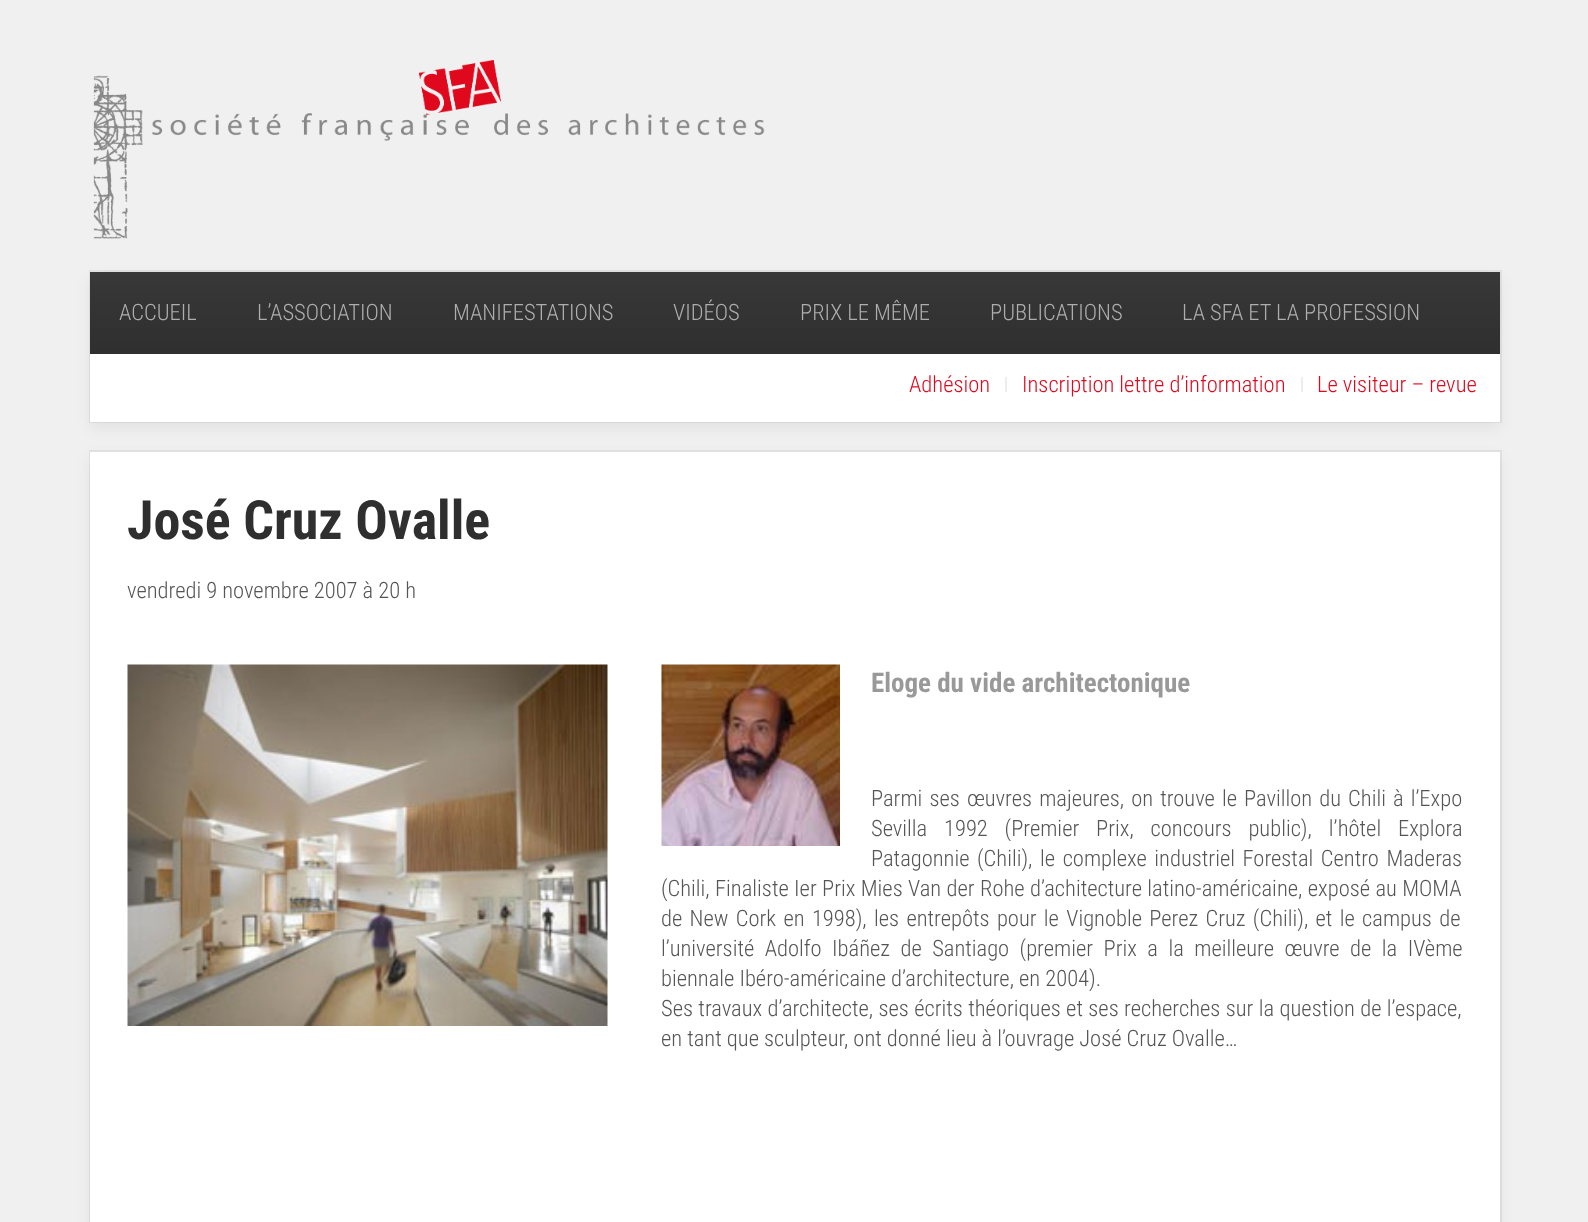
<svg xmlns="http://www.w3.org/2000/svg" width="1588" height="1222">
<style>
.a{font:300 22.5px Roboto Condensed;fill:#aeaeae}
.b{font:300 22.5px Roboto Condensed;fill:#e0081d}
.c{font:bold 54px Roboto Condensed;fill:#2f2f2f}
.d{font:300 22.5px Roboto Condensed;fill:#555}
.e{font:bold 27px Roboto Condensed;fill:#999}
</style>
<defs>
<linearGradient id="g1" gradientUnits="userSpaceOnUse" x1="795" y1="271" x2="795" y2="354"><stop offset="0" stop-color="#383838"/><stop offset="1" stop-color="#2f2f2f"/></linearGradient>
</defs>
<rect width="100%" height="100%" fill="#f0f0f0"/>
<image href="1.png" x="93" y="60" width="672" height="179"/>
<path fill="#0000000f" filter="blur(7.5px)" d="M90 278h1410v150H90z"/>
<path fill="none" stroke="#0000000f" stroke-width="2" d="M90 271h1411v151H90z"/>
<path fill="#fff" d="M90 354h1410v68H90z"/>
<path fill="url(#g1)" d="M90 272h1410v82H90z"/>
<path fill="#ededed" d="M1005 377h2v15H1005z"/>
<path fill="#ededed" d="M1301 377h2v15H1301z"/>
<path fill="#0000000f" filter="blur(7.5px)" d="M90 458h1410v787H90z"/>
<path fill="none" stroke="#0000000f" stroke-width="2" d="M90 451h1411v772H90z"/>
<path fill="#fff" d="M90 452h1410v770H90z"/>
<image href="2.png" x="127" y="664" width="481" height="362"/>
<image href="3.png" x="661" y="664" width="179" height="182"/>
<text class="a" x="119" y="320">ACCUEIL</text>
<text class="a" x="257" y="320">L’ASSOCIATION</text>
<text class="a" x="453" y="320">MANIFESTATIONS</text>
<text class="a" x="673" y="320">VIDÉOS</text>
<text class="a" x="800" y="320">PRIX LE MÊME</text>
<text class="a" x="990" y="320">PUBLICATIONS</text>
<text class="a" x="1182" y="320">LA SFA ET LA PROFESSION</text>
<text class="b" x="909" y="392">Adhésion</text>
<text class="b" x="1022" y="392">Inscription lettre d’information</text>
<text class="b" x="1317" y="392">Le visiteur – revue</text>
<text class="c" x="127" y="539">José Cruz Ovalle</text>
<text class="d" x="127" y="598">vendredi 9 novembre 2007 à 20 h</text>
<text class="e" x="871" y="692">Eloge du vide architectonique</text>
<text class="d" x="871" y="806" word-spacing="2">Parmi ses œuvres majeures, on trouve le Pavillon du Chili à l’Expo</text>
<text class="d" x="871" y="836" word-spacing="11.75">Sevilla 1992 (Premier Prix, concours public), l’hôtel Explora</text>
<text class="d" x="871" y="866" word-spacing="2.5">Patagonnie (Chili), le complexe industriel Forestal Centro Maderas</text>
<text class="d" x="661" y="896" word-spacing="0.3">(Chili, Finaliste Ier Prix Mies Van der Rohe d’achitecture latino-américaine, exposé au MOMA</text>
<text class="d" x="661" y="926" word-spacing="2.25">de New Cork en 1998),</text>
<text class="d" x="874" y="926" word-spacing="2.25">les entrepôts pour le Vignoble Perez Cruz (Chili), et le campus de</text>
<text class="d" x="661" y="956" word-spacing="5.4">l’université Adolfo Ibáñez de Santiago (premier Prix a la meilleure œuvre de la IVème</text>
<text class="d" x="661" y="986">biennale Ibéro-américaine d’architecture, en 2004).</text>
<text class="d" x="661" y="1016" word-spacing="0.3">Ses travaux d’architecte, ses écrits théoriques et ses recherches sur la question de l’espace,</text>
<text class="d" x="661" y="1046">en tant que sculpteur, ont donné lieu à l’ouvrage José Cruz Ovalle…</text>
</svg>
